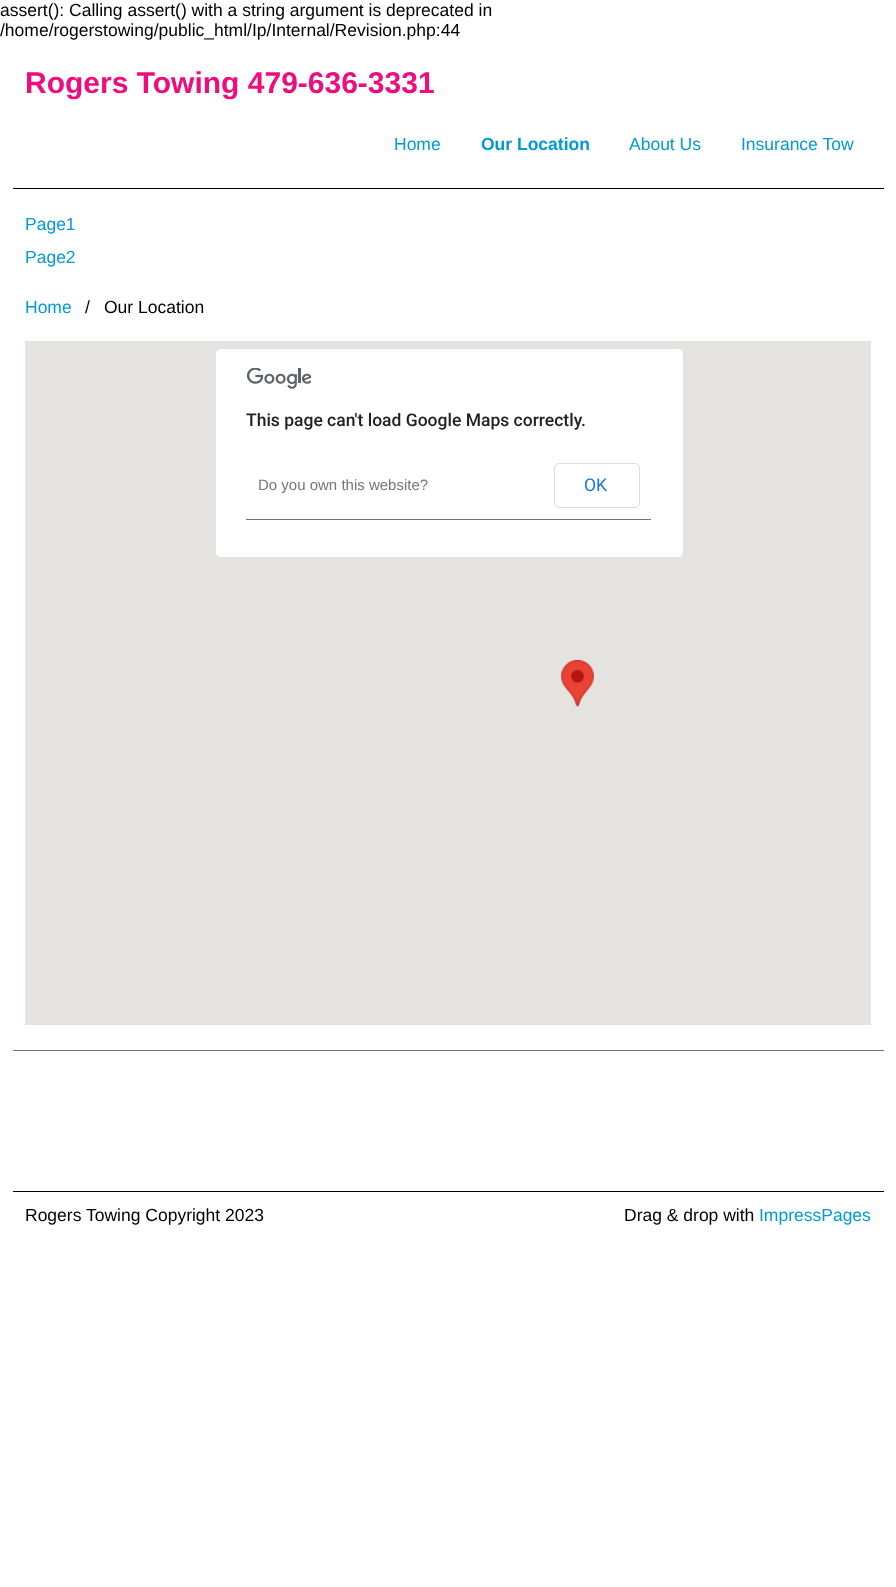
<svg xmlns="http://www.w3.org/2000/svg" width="896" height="1587">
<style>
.a{font:17.5px Liberation Sans;fill:#000}
.b{font:bold 30px Liberation Sans;fill:#ef0d7e}
.c{font:17.5px Liberation Sans;fill:#019bd4}
.d{font:bold 17.5px Liberation Sans;fill:#019bd4}
.e{font:500 17.5px Roboto;fill:#212121}
.f{font:15px Liberation Sans;fill:#757575}
.g{font:17.5px Roboto;fill:#1a73e8}
</style>
<rect width="100%" height="100%" fill="#fff"/>
<path fill="#000" d="M13 188h871v1H13z"/>
<path fill="#e5e3df" d="M25 341h846v684H25z"/>
<image href="1.png" x="561" y="660" width="33" height="47"/>
<rect fill="#fff" x="215" y="348" width="469" height="210" rx="6"/>
<rect fill="none" stroke="#0000001f" x="215.5" y="348.5" width="468" height="209" rx="5.5"/>
<image href="2.png" x="246" y="368" width="65" height="21"/>
<path fill="#747474" d="M246 519h405v1H246z"/>
<rect fill="none" stroke="#dadce0" x="554.5" y="463.5" width="85" height="44" rx="4.5"/>
<path fill="#747474" d="M13 1050h871v1H13z"/>
<path fill="#000" d="M13 1191h871v1H13z"/>
<text class="a" x="0" y="16">assert(): Calling assert() with a string argument is deprecated in</text>
<text class="a" x="0" y="36">/home/rogerstowing/public_html/Ip/Internal/Revision.php:44</text>
<text class="b" x="25" y="93">Rogers Towing 479-636-3331</text>
<text class="c" x="394" y="150">Home</text>
<text class="d" x="481" y="150">Our Location</text>
<text class="c" x="629" y="150">About Us</text>
<text class="c" x="741" y="150">Insurance Tow</text>
<text class="c" x="25" y="230">Page1</text>
<text class="c" x="25" y="263">Page2</text>
<text class="c" x="25" y="313">Home</text>
<text class="a" x="85" y="313">/</text>
<text class="a" x="104" y="313">Our Location</text>
<text class="e" x="246" y="426">This page can't load Google Maps correctly.</text>
<text class="f" x="258" y="490">Do you own this website?</text>
<text class="g" x="584" y="491">OK</text>
<text class="a" x="25" y="1221">Rogers Towing Copyright 2023</text>
<text class="a" x="624" y="1221">Drag &amp; drop with</text>
<text class="c" x="759" y="1221">ImpressPages</text>
</svg>
